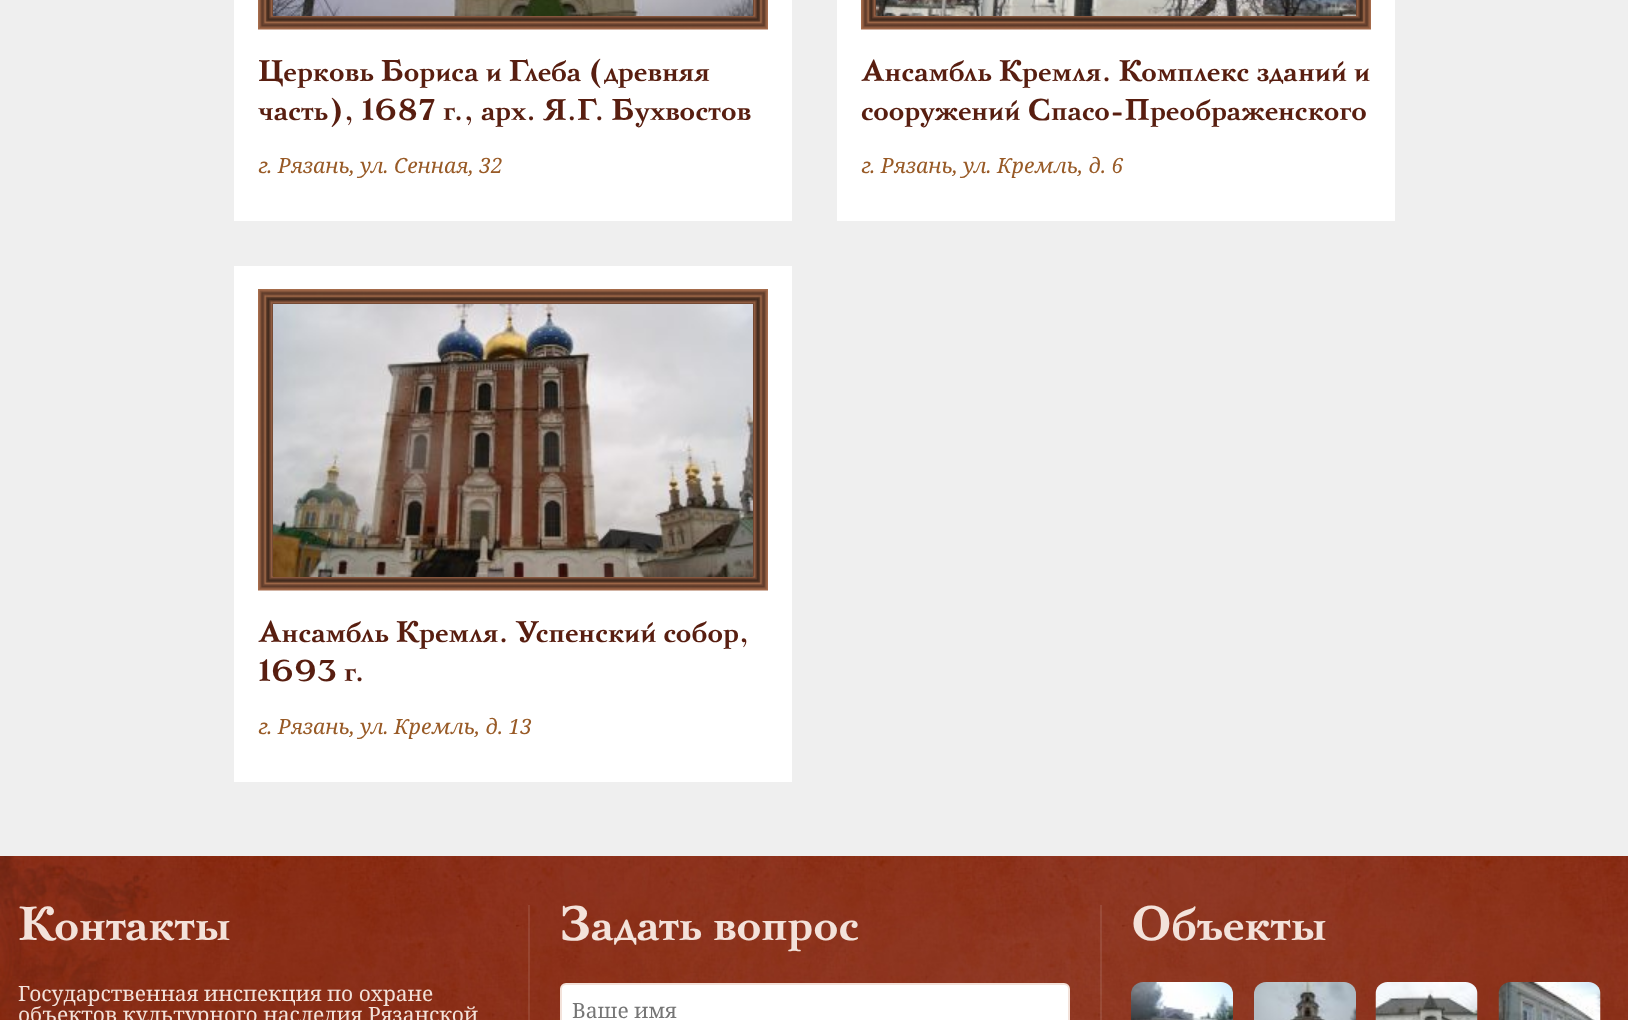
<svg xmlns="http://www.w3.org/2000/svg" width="1628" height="1020">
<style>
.a{font:bold 30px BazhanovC;fill:#581e10}
.b{font:italic 21px Noto Serif;fill:#985a26}
.c{font:bold 48px BazhanovC;fill:#f3e2da}
.d{font:21px Noto Serif;fill:#f3e2da}
.e{font:21px Noto Serif;fill:#757575}
</style>
<rect width="100%" height="100%" fill="#efefef"/>
<path fill="#fff" d="M234 0h558v221H234z"/>
<image href="1.png" x="258" y="0" width="510" height="30"/>
<image href="2.png" x="273" y="0" width="480" height="16"/>
<path fill="#fff" d="M837 0h558v221H837z"/>
<image href="1.png" x="861" y="0" width="510" height="30"/>
<image href="3.png" x="876" y="0" width="480" height="16"/>
<path fill="#fff" d="M234 266h558v516H234z"/>
<image href="4.png" x="258" y="289" width="510" height="302"/>
<image href="5.png" x="273" y="304" width="480" height="273"/>
<image href="6.png" x="0" y="856" width="1628" height="164"/>
<path fill="#ffffff1a" d="M528 905h2v115H528z"/>
<rect fill="#fff" stroke="#f3e2da" stroke-width="2" x="561" y="984" width="508" height="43" rx="5"/>
<path fill="#ffffff1a" d="M1100 905h2v115H1100z"/>
<image href="7.png" x="1131" y="982" width="102" height="38"/>
<image href="8.png" x="1254" y="982" width="102" height="38"/>
<image href="9.png" x="1375" y="982" width="103" height="38"/>
<image href="10.png" x="1498" y="982" width="103" height="38"/>
<text class="a" x="258" y="81">Церковь Бориса и Глеба (древняя</text>
<text class="a" x="258" y="120">часть), 1687 г., арх. Я.Г. Бухвостов</text>
<text class="b" x="258" y="173">г. Рязань, ул. Сенная, 32</text>
<text class="a" x="861" y="81">Ансамбль Кремля. Комплекс зданий и</text>
<text class="a" x="861" y="120">сооружений Спасо-Преображенского</text>
<text class="b" x="861" y="173">г. Рязань, ул. Кремль, д. 6</text>
<text class="a" x="258" y="642">Ансамбль Кремля. Успенский собор,</text>
<text class="a" x="258" y="681">1693 г.</text>
<text class="b" x="258" y="734">г. Рязань, ул. Кремль, д. 13</text>
<text class="c" x="18" y="940">Контакты</text>
<text class="d" x="18" y="1001">Государственная инспекция по охране</text>
<text class="d" x="18" y="1022">объектов культурного наследия Рязанской</text>
<text class="c" x="559" y="940">Задать вопрос</text>
<text class="e" x="572" y="1018">Ваше имя</text>
<text class="c" x="1131" y="940">Объекты</text>
</svg>
